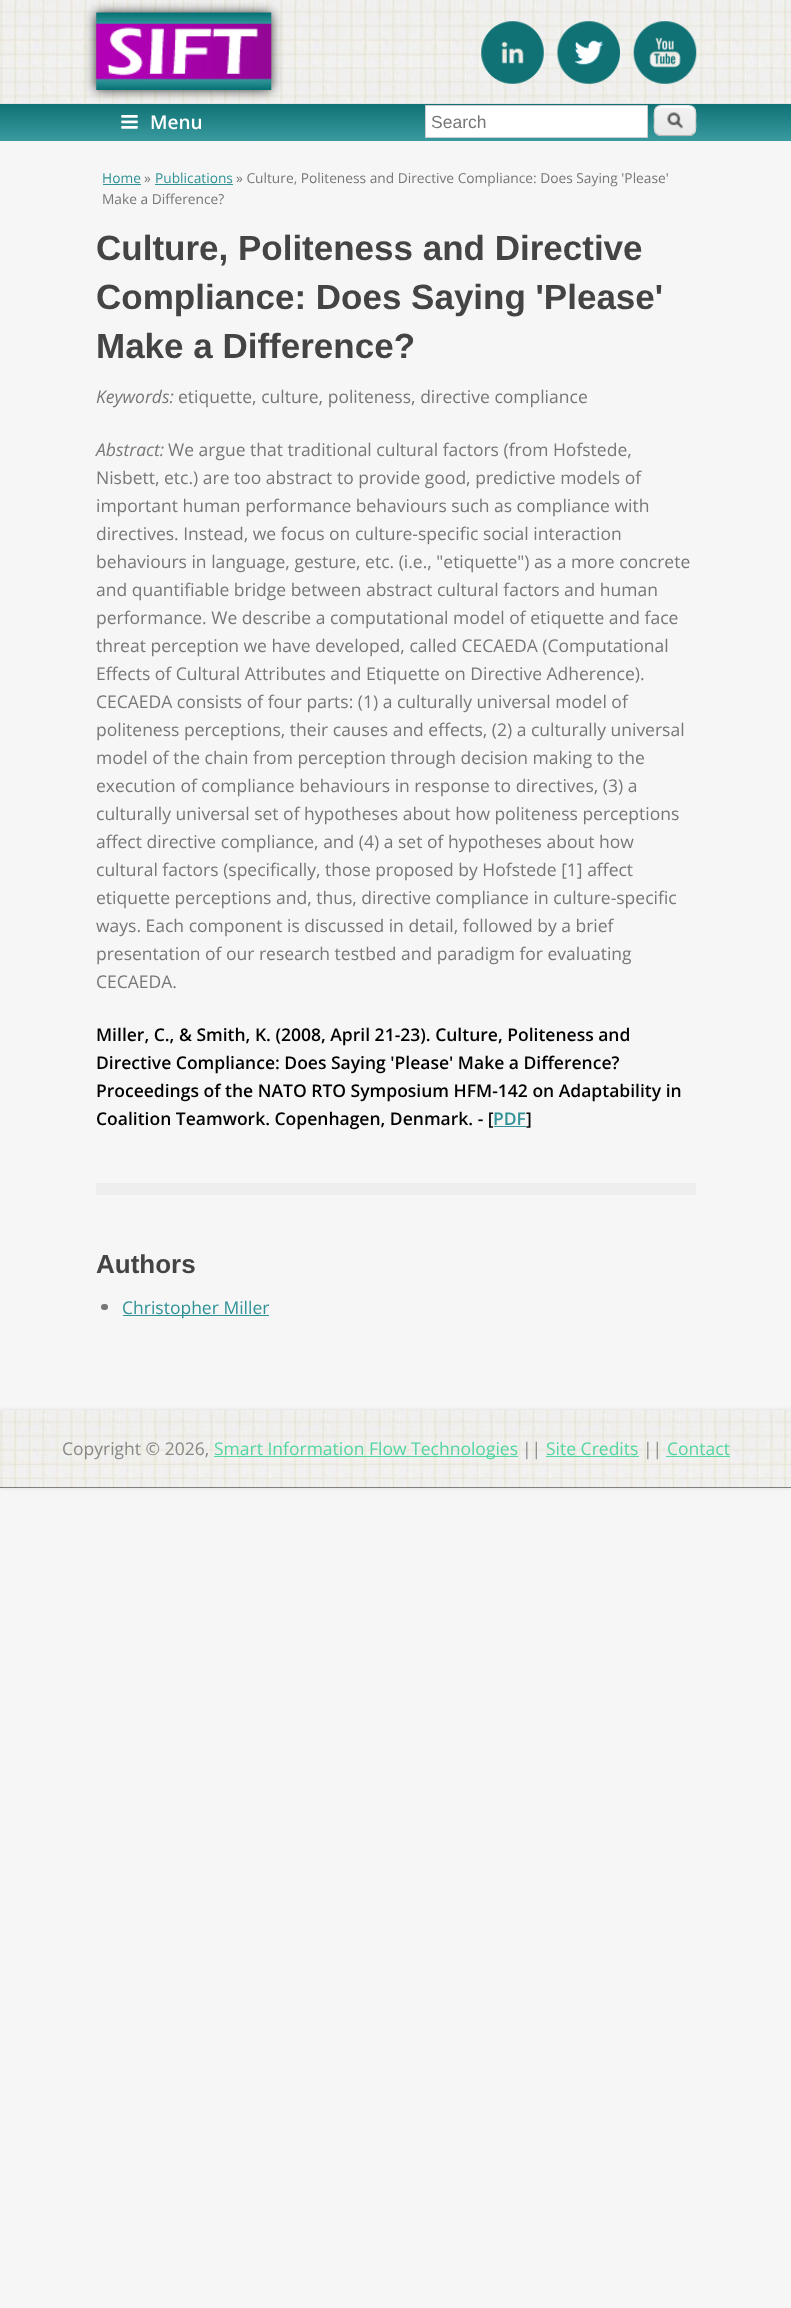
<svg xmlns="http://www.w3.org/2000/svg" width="791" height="2308">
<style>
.a{font:600 19px Open Sans;fill:#fff}
.b{font:17.5px Liberation Sans;fill:#777}
.c{font:13.75px Open Sans;fill:#309296}
.d{font:13.75px Open Sans;fill:#777}
.e{font:bold 35px Liberation Sans;fill:#444}
.f{font:italic 17.5px Open Sans;fill:#777}
.g{font:17.5px Open Sans;fill:#777}
.h{font:600 17.5px Open Sans;fill:#000}
.i{font:600 17.5px Open Sans;fill:#309296}
.j{font:bold 26px Liberation Sans;fill:#444}
.k{font:17.5px Open Sans;fill:#309296}
.l{font:17.5px Open Sans;fill:#888}
.m{font:17.5px Open Sans;fill:#54d5a2}
</style>
<defs>
<linearGradient id="g1" gradientUnits="userSpaceOnUse" x1="396" y1="104" x2="396" y2="141"><stop offset="0" stop-color="#107275"/><stop offset="1" stop-color="#399b9f"/></linearGradient>
</defs>
<rect width="100%" height="100%" fill="#f6f6f6"/>
<image href="1.png" x="0" y="0" width="791" height="103"/>
<path fill="#e4e4e4" d="M0 103h791v1H0z"/>
<path fill="url(#g1)" d="M0 104h791v37H0z"/>
<path fill="#000000cc" filter="blur(6px)" d="M96 13h175v77H96z"/>
<image href="2.png" x="96" y="12" width="176" height="78"/>
<image href="3.png" x="481" y="21" width="63" height="63"/>
<image href="4.png" x="557" y="21" width="63" height="63"/>
<image href="5.png" x="633" y="21" width="64" height="63"/>
<image href="6.png" x="121" y="115" width="17" height="14"/>
<path fill="#fff" stroke="#ccc" d="M425.5 105.5h222v32H425.5z"/>
<image href="7.png" x="653" y="106" width="44" height="31"/>
<path fill="#fff" fill-rule="evenodd" d="M661 108h23c9 0 11 2 11 8c0-9-2-10-11-10h-18c-9 0-11 1-11 10c0-4 1-8 6-8zm34 20v2zm-39 3l-1-3z"/>
<path fill="none" stroke="#e4e4e4" stroke-width="1.2" d="M656.5 107.5c1-1 3-2 4.5-2h28c1.5 0 3.5 1 4.5 2"/>
<path fill="none" stroke="#d2d2d2" stroke-width="1.2" d="M693.5 107.5c3.5 3.5 2 9 2 13c0 4 1.5 10-2 13"/>
<path fill="none" stroke="#b4b4b4" stroke-width="1.2" d="M693.5 133.5c-1 1.5-3 2-4.5 2h-28c-1.5 0-3.5-.5-4.5-2"/>
<path fill="none" stroke="#d2d2d2" stroke-width="1.2" d="M656.5 133.5c-3.5-3-2-9-2-13c0-4-1.5-9.5 2-13"/>
<path fill="#309296" d="M103 184h38v1H103z"/>
<path fill="#309296" d="M155 184h78v1H155z"/>
<path fill="#309296" d="M494 1126h32v1H494z"/>
<path fill="#eee" d="M96 1183h600v12H96z"/>
<rect fill="#777" x="101" y="1304" width="7" height="6" rx="3"/>
<path fill="#309296" d="M123 1315h146v1H123z"/>
<path fill="#0000001a" filter="blur(2px)" d="M0 1410h791v78H0z"/>
<path fill="#111" d="M0 1487h791v1H0z"/>
<image href="8.png" x="0" y="1410" width="791" height="78"/>
<path fill="#54d5a2" d="M214 1456h304v1H214z"/>
<path fill="#54d5a2" d="M546 1456h93v1H546z"/>
<path fill="#54d5a2" d="M666 1456h64v1H666z"/>
<text class="a" x="150" y="129">Menu</text>
<text class="b" x="431" y="128">Search</text>
<text class="c" x="102" y="183">Home</text>
<text class="d" x="144" y="183">»</text>
<text class="c" x="155" y="183">Publications</text>
<text class="d" x="236" y="183">» Culture, Politeness and Directive Compliance: Does Saying 'Please'</text>
<text class="d" x="102" y="204">Make a Difference?</text>
<text class="e" x="96" y="260">Culture, Politeness and Directive</text>
<text class="e" x="96" y="309">Compliance: Does Saying 'Please'</text>
<text class="e" x="96" y="358">Make a Difference?</text>
<text class="f" x="96" y="403">Keywords:</text>
<text class="g" x="178" y="403">etiquette, culture, politeness, directive compliance</text>
<text class="f" x="96" y="456">Abstract:</text>
<text class="g" x="168" y="456">We argue that traditional cultural factors (from Hofstede,</text>
<text class="g" x="96" y="484">Nisbett, etc.) are too abstract to provide good, predictive models of</text>
<text class="g" x="96" y="512">important human performance behaviours such as compliance with</text>
<text class="g" x="96" y="540">directives. Instead, we focus on culture-specific social interaction</text>
<text class="g" x="96" y="568">behaviours in language, gesture, etc. (i.e., "etiquette") as a more concrete</text>
<text class="g" x="96" y="596">and quantifiable bridge between abstract cultural factors and human</text>
<text class="g" x="96" y="624">performance. We describe a computational model of etiquette and face</text>
<text class="g" x="96" y="652">threat perception we have developed, called CECAEDA (Computational</text>
<text class="g" x="96" y="680">Effects of Cultural Attributes and Etiquette on Directive Adherence).</text>
<text class="g" x="96" y="708">CECAEDA consists of four parts: (1) a culturally universal model of</text>
<text class="g" x="96" y="736">politeness perceptions, their causes and effects, (2) a culturally universal</text>
<text class="g" x="96" y="764">model of the chain from perception through decision making to the</text>
<text class="g" x="96" y="792">execution of compliance behaviours in response to directives, (3) a</text>
<text class="g" x="96" y="820">culturally universal set of hypotheses about how politeness perceptions</text>
<text class="g" x="96" y="848">affect directive compliance, and (4) a set of hypotheses about how</text>
<text class="g" x="96" y="876">cultural factors (specifically, those proposed by Hofstede [1] affect</text>
<text class="g" x="96" y="904">etiquette perceptions and, thus, directive compliance in culture-specific</text>
<text class="g" x="96" y="932">ways. Each component is discussed in detail, followed by a brief</text>
<text class="g" x="96" y="960">presentation of our research testbed and paradigm for evaluating</text>
<text class="g" x="96" y="988">CECAEDA.</text>
<text class="h" x="96" y="1041">Miller, C., &amp; Smith, K. (2008, April 21-23). Culture, Politeness and</text>
<text class="h" x="96" y="1069">Directive Compliance: Does Saying 'Please' Make a Difference?</text>
<text class="h" x="96" y="1097">Proceedings of the NATO RTO Symposium HFM-142 on Adaptability in</text>
<text class="h" x="96" y="1125">Coalition Teamwork. Copenhagen, Denmark. - [</text>
<text class="i" x="493" y="1125">PDF</text>
<text class="h" x="526" y="1125">]</text>
<text class="j" x="96" y="1273">Authors</text>
<text class="k" x="122" y="1314">Christopher Miller</text>
<text class="l" x="62" y="1455">Copyright © 2026,</text>
<text class="m" x="214" y="1455">Smart Information Flow Technologies</text>
<text class="l" x="522" y="1455">||</text>
<text class="m" x="546" y="1455">Site Credits</text>
<text class="l" x="643" y="1455">||</text>
<text class="m" x="667" y="1455">Contact</text>
</svg>
